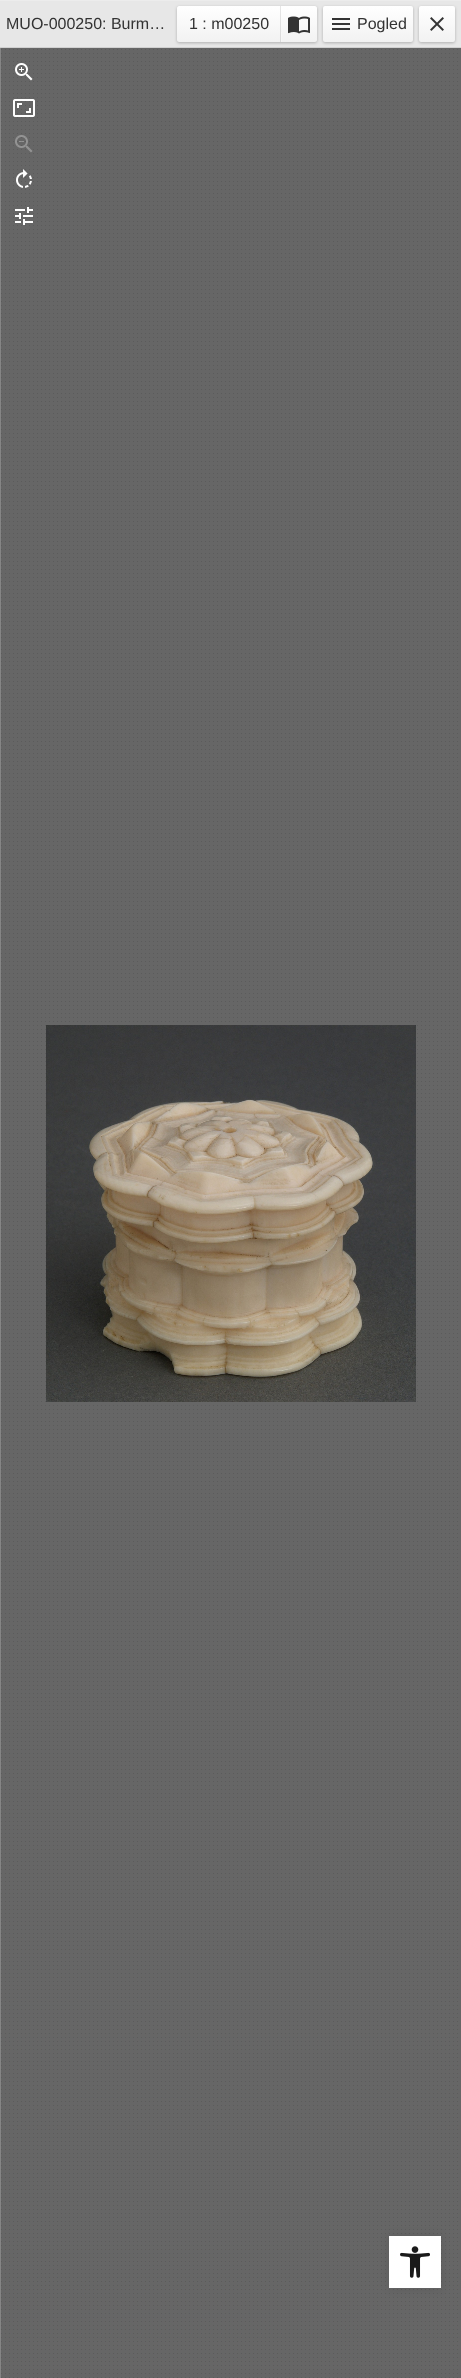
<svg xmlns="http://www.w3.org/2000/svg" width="461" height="2378">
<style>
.a{font:16px Liberation Sans;fill:#333}
</style>
<defs>
<linearGradient id="g1" gradientUnits="userSpaceOnUse" x1="229" y1="6" x2="229" y2="42"><stop offset="0" stop-color="#fff"/><stop offset="1" stop-color="#f2f2f2"/></linearGradient>
<linearGradient id="g2" gradientUnits="userSpaceOnUse" x1="229" y1="6" x2="229" y2="42"><stop offset="0" stop-color="#e6e6e6"/><stop offset="1" stop-color="#dadada"/></linearGradient>
<linearGradient id="g3" gradientUnits="userSpaceOnUse" x1="299" y1="6" x2="299" y2="42"><stop offset="0" stop-color="#fff"/><stop offset="1" stop-color="#f2f2f2"/></linearGradient>
<linearGradient id="g4" gradientUnits="userSpaceOnUse" x1="299" y1="6" x2="299" y2="42"><stop offset="0" stop-color="#fff"/><stop offset="1" stop-color="#f5f5f5"/></linearGradient>
<linearGradient id="g5" gradientUnits="userSpaceOnUse" x1="368" y1="6" x2="368" y2="42"><stop offset="0" stop-color="#fff"/><stop offset="1" stop-color="#f2f2f2"/></linearGradient>
<linearGradient id="g6" gradientUnits="userSpaceOnUse" x1="437" y1="6" x2="437" y2="42"><stop offset="0" stop-color="#fff"/><stop offset="1" stop-color="#f2f2f2"/></linearGradient>
</defs>
<rect width="100%" height="100%" fill="#e7e7e7"/>
<path fill="#d0d0d0" d="M0 47h461v1H0z"/>
<path fill="#ececec" d="M0 0h461v1H0z"/>
<rect fill="#0000003d" filter="blur(1.5px)" x="177" y="7" width="140" height="36" rx="2"/>
<path fill="url(#g1)" d="M179 6h102v36h-102c-1 0-2-1-2-2v-32c0-1 1-2 2-2z"/>
<path fill="url(#g2)" d="M280 6h1v36H280z"/>
<path fill="url(#g3)" d="M281 6h34c1 0 2 1 2 2v32c0 1-1 2-2 2h-34z"/>
<path fill="url(#g4)" d="M281 32h1v10H281z"/>
<image href="1.png" x="288" y="16" width="22" height="18"/>
<rect fill="#0000003d" filter="blur(1.5px)" x="323" y="7" width="90" height="36" rx="2"/>
<rect fill="url(#g5)" x="323" y="6" width="90" height="36" rx="2"/>
<image href="2.png" x="332" y="18" width="18" height="12"/>
<rect fill="#0000003d" filter="blur(1.5px)" x="419" y="7" width="36" height="36" rx="2"/>
<rect fill="url(#g6)" x="419" y="6" width="36" height="36" rx="2"/>
<image href="3.png" x="430" y="17" width="14" height="14"/>
<path fill="#666" d="M1 48h460v2330H1z"/>
<image href="4.png" x="1" y="49" width="457" height="2329"/>
<path fill="#858585" d="M0 48h1v2330H0z"/>
<image href="5.png" x="15" y="63" width="18" height="18"/>
<image href="6.png" x="13" y="99" width="22" height="18"/>
<image href="7.png" x="15" y="135" width="18" height="18"/>
<image href="8.png" x="16" y="169" width="16" height="19"/>
<image href="9.png" x="15" y="207" width="18" height="18"/>
<image href="10.png" x="46" y="1025" width="370" height="377"/>
<path fill="#0000001a" filter="blur(5px)" d="M389 2236h52v52H389z"/>
<path fill="#fff" d="M389 2236h52v52H389z"/>
<image href="11.png" x="400" y="2246" width="30" height="32"/>
<text class="a" x="6" y="29">MUO-000250: Burm…</text>
<text class="a" x="189" y="29">1 : m00250</text>
<text class="a" x="357" y="29">Pogled</text>
</svg>
